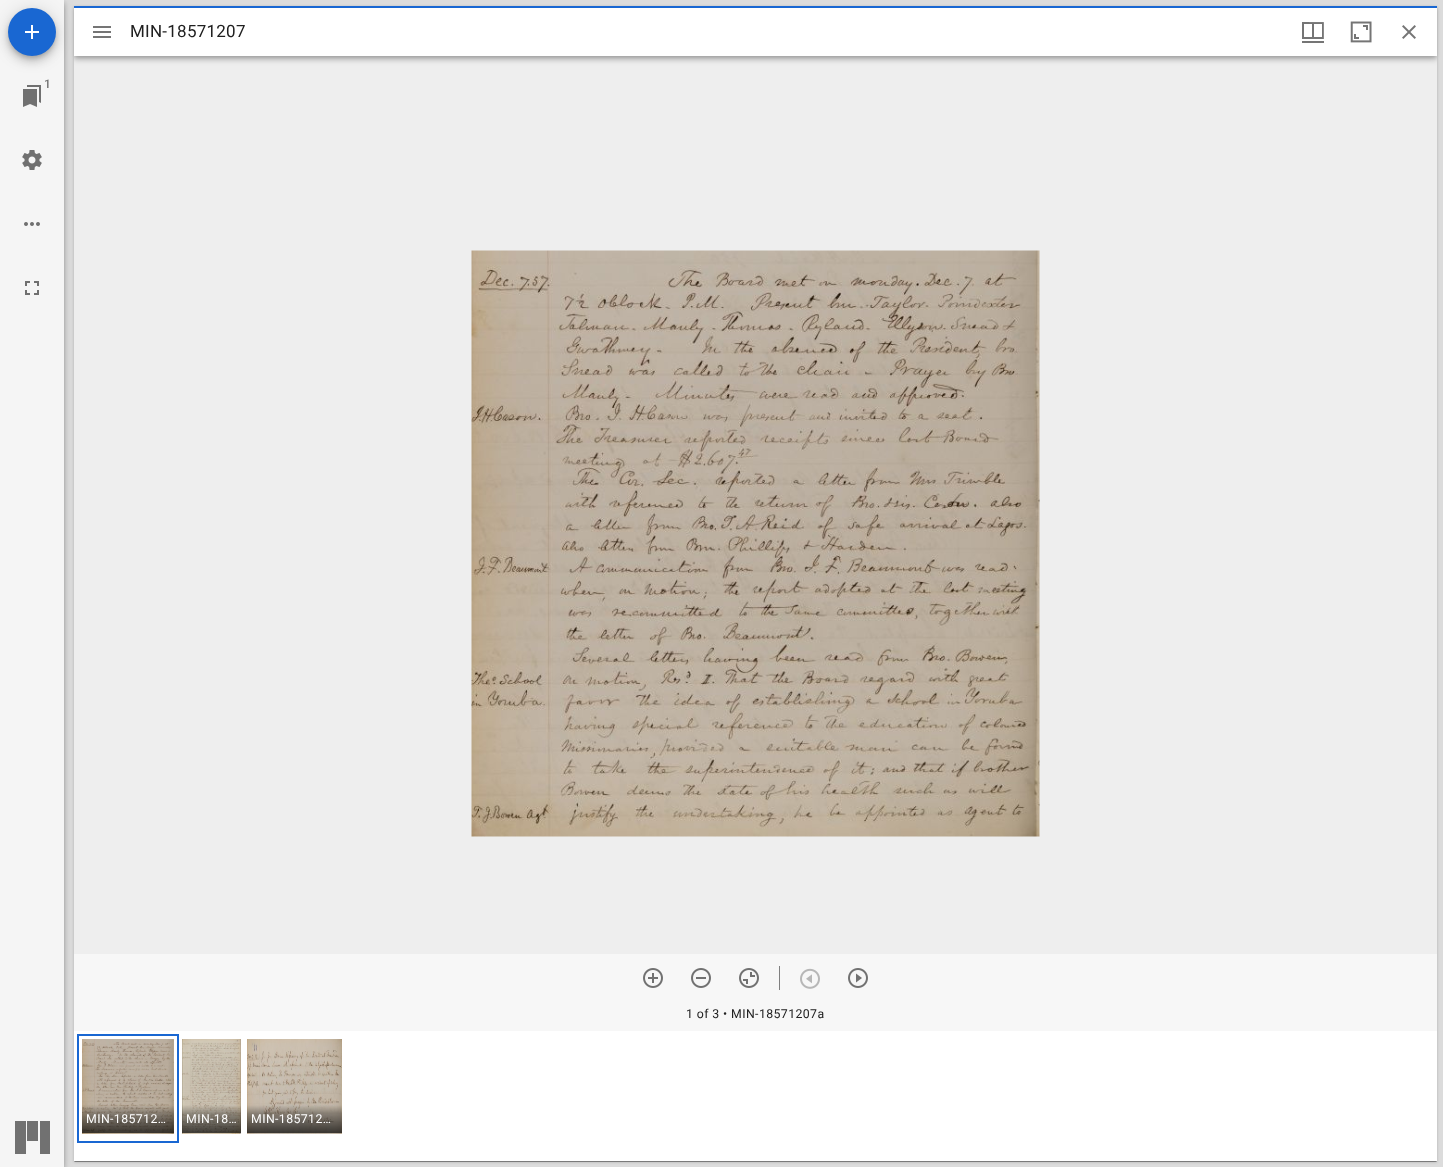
<svg xmlns="http://www.w3.org/2000/svg" width="1443" height="1167">
<style>
.a{font:500 12px Roboto;fill:#717171}
.b{font:17px Roboto;letter-spacing:0.25px;fill:#202020}
.c{font:12.3px Roboto;letter-spacing:0.4px;fill:#202020}
.d{font:12.3px Roboto;letter-spacing:0.4px;fill:#fff}
</style>
<defs>
<clipPath id="clip1"><path d="M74 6h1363v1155H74z"/></clipPath>
</defs>
<rect width="100%" height="100%" fill="#dcdcdc"/>
<path fill="#00000033" filter="blur(0.5px)" d="M75 9h1361v1153H75z"/>
<path fill="#00000033" filter="blur(0.5px)" d="M74 7h1363v1155H74z"/>
<path fill="#00000033" filter="blur(1.5px)" d="M74 7h1363v1155H74z"/>
<path fill="#eee" d="M74 56h1363v898H74z"/>
<g clip-path="url(#clip1)">
<path fill="#0000001f" filter="blur(5px)" d="M74 7h1363v50H74z"/>
<path fill="#00000024" filter="blur(2.5px)" d="M74 10h1363v50H74z"/>
</g>
<path fill="#00000033" filter="blur(2px)" d="M75 9h1361v48H75z"/>
<path fill="#fff" d="M74 8h1363v48H74z"/>
<path fill="#1967d2" d="M74 6h1363v2H74z"/>
<path fill="#f7f7f7" d="M74 954h1363v77H74z"/>
<path fill="#fff" d="M74 1031h1363v130H74z"/>
<path fill="none" stroke="#1967d2" stroke-width="2" d="M78 1035h100v107H78z"/>
<path fill="#0000001f" filter="blur(5px)" d="M0 1h64v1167H0z"/>
<path fill="#00000024" filter="blur(2.5px)" d="M0 4h64v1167H0z"/>
<path fill="#00000033" filter="blur(2px)" d="M1 3h62v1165H1z"/>
<path fill="#f5f5f5" d="M0 0h64v1167H0z"/>
<rect fill="#0000001f" filter="blur(9px)" x="8" y="9" width="48" height="48" rx="24"/>
<rect fill="#00000024" filter="blur(5px)" x="8" y="14" width="48" height="48" rx="24"/>
<rect fill="#00000033" filter="blur(2.5px)" x="9" y="12" width="46" height="46" rx="23"/>
<circle fill="#1967d2" cx="32" cy="32" r="24"/>
<image href="1.png" x="25" y="25" width="14" height="14"/>
<image href="2.png" x="23" y="85" width="18" height="22"/>
<image href="3.png" x="22" y="150" width="20" height="20"/>
<image href="4.png" x="24" y="222" width="16" height="4"/>
<image href="5.png" x="25" y="281" width="14" height="14"/>
<path fill="#717171" d="M15 1121h11v33H15z"/>
<path fill="#717171" d="M40 1121h10v33H40z"/>
<path fill="#717171" d="M27 1121h11v20H27z"/>
<image href="6.png" x="93" y="26" width="18" height="12"/>
<image href="7.png" x="1302" y="22" width="22" height="21"/>
<image href="8.png" x="1350" y="21" width="22" height="22"/>
<image href="9.png" x="1402" y="25" width="14" height="14"/>
<image href="10.png" x="471" y="250" width="569" height="587"/>
<image href="11.png" x="643" y="968" width="20" height="20"/>
<image href="12.png" x="691" y="968" width="20" height="20"/>
<image href="13.png" x="739" y="968" width="20" height="20"/>
<path fill="#808080" d="M779 966h1v24H779z"/>
<image href="14.png" x="800" y="968" width="20" height="21"/>
<image href="15.png" x="848" y="968" width="20" height="20"/>
<image href="16.png" x="82" y="1039" width="92" height="95"/>
<image href="17.png" x="182" y="1039" width="59" height="95"/>
<image href="18.png" x="247" y="1039" width="95" height="95"/>
<text class="a" x="44" y="88">1</text>
<text class="b" x="130" y="37">MIN-18571207</text>
<text class="c" x="686" y="1018">1 of 3 • MIN-18571207a</text>
<text class="d" x="86" y="1123">MIN-185712…</text>
<text class="d" x="186" y="1123">MIN-18…</text>
<text class="d" x="251" y="1123">MIN-185712…</text>
</svg>
